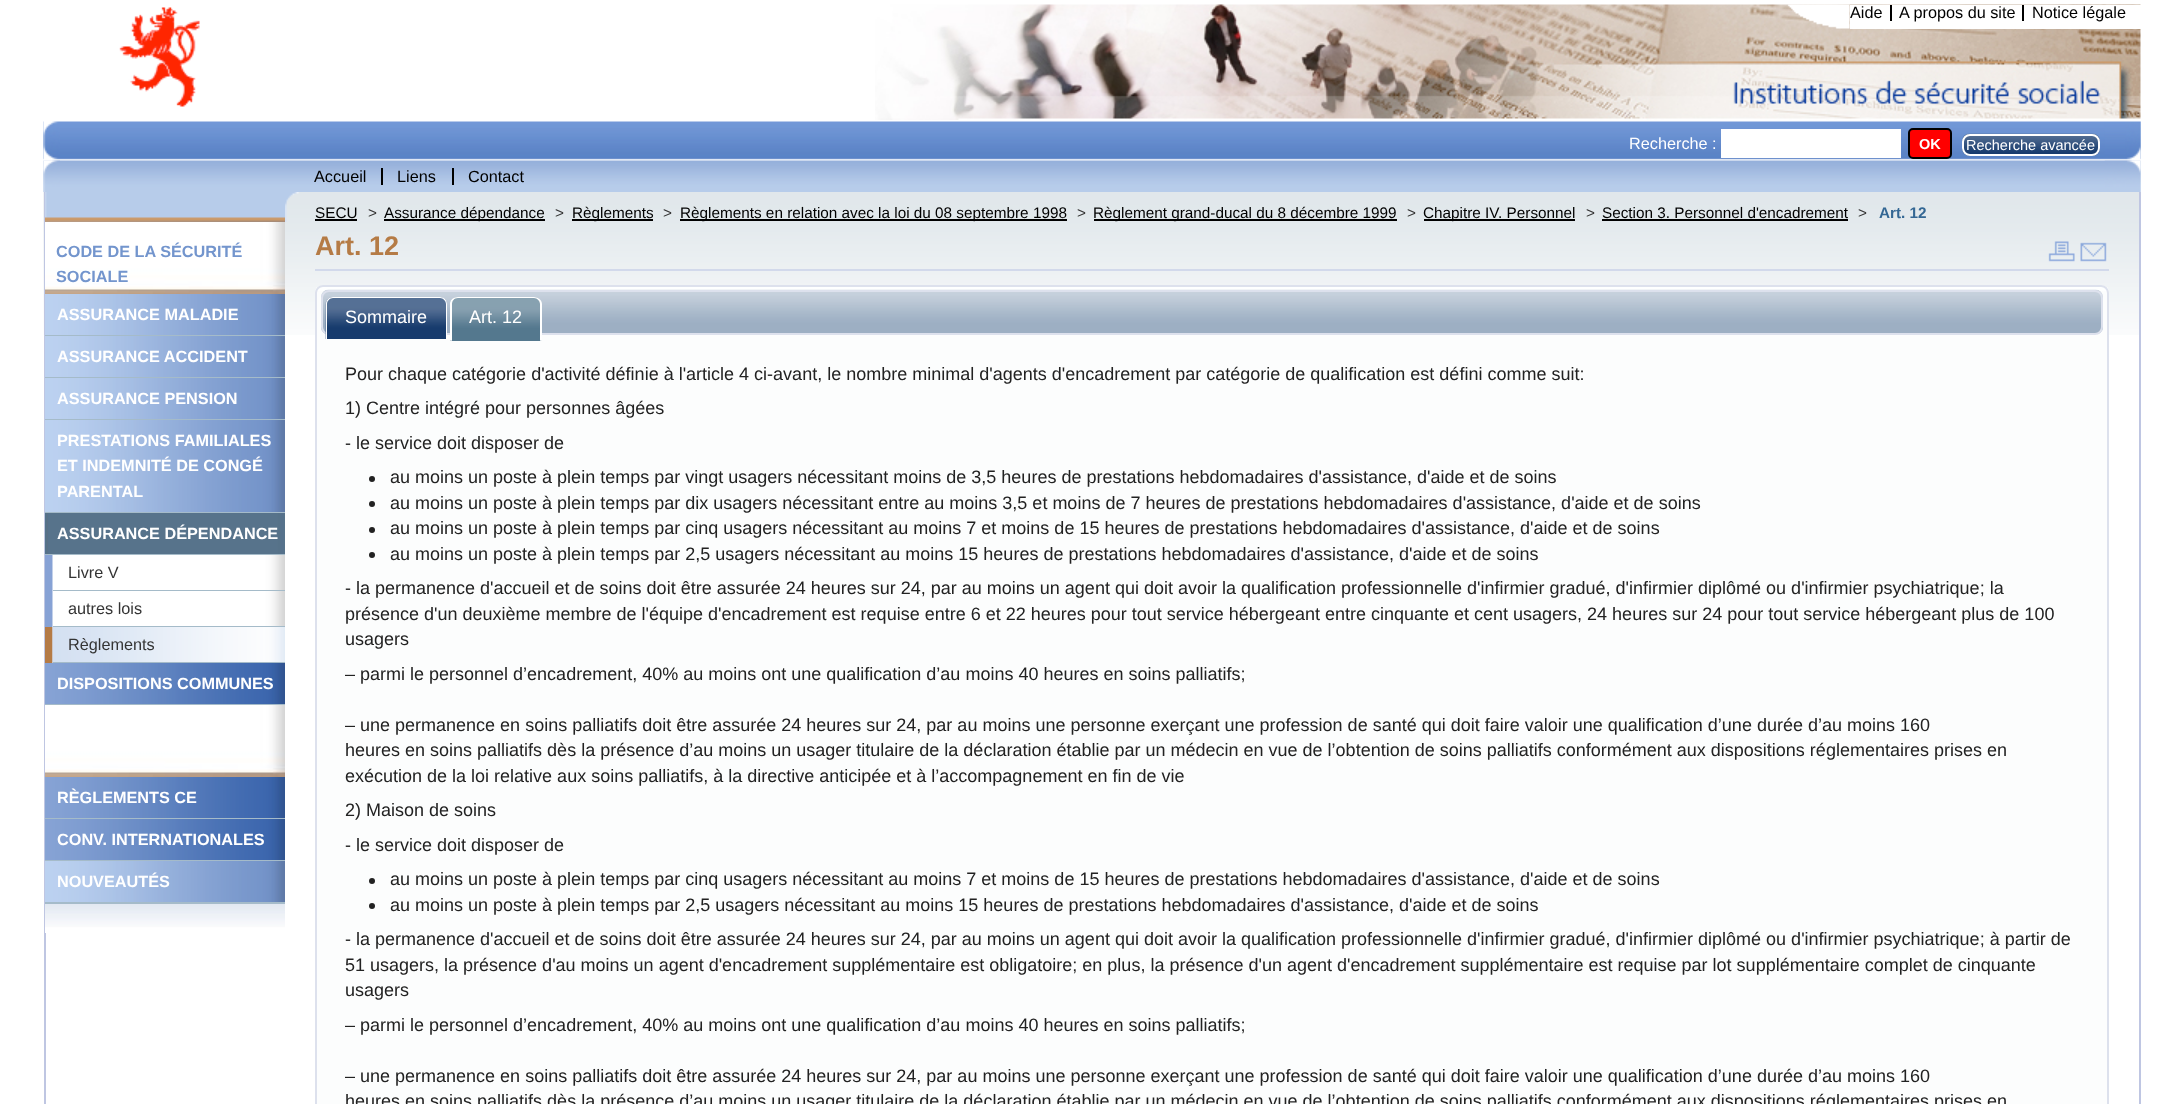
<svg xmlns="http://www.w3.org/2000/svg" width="2183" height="1104">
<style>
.a{font:16.25px Liberation Sans;fill:#000}
.b{font:16.25px Liberation Sans;fill:#fff}
.c{font:bold 14.5px Liberation Sans;fill:#fff}
.d{font:14.5px Liberation Sans;fill:#fff}
.e{font:bold 16.25px Liberation Sans;fill:#7395cd}
.f{font:bold 16.25px Liberation Sans;fill:#fff}
.g{font:16.25px Liberation Sans;fill:#343434}
.h{font:15.3px Liberation Sans;fill:#000}
.i{font:15.3px Liberation Sans;fill:#343434}
.j{font:bold 15.3px Liberation Sans;fill:#346794}
.k{font:bold 27px Liberation Sans;fill:#b57b45}
.l{font:18px Liberation Sans;fill:#fff}
.m{font:18px Liberation Sans;fill:#222}
</style>
<rect width="100%" height="100%" fill="#fff"/>
<image href="1.png" x="875" y="4" width="1266" height="116"/>
<image href="2.png" x="119" y="7" width="81" height="100"/>
<image href="3.png" x="1787" y="4" width="63" height="25"/>
<path fill="#fff" d="M1850 5h291v24H1850z"/>
<path fill="#000" d="M1890 5h2v16H1890z"/>
<path fill="#000" d="M2022 5h2v16H2022z"/>
<image href="4.png" x="43" y="121" width="2098" height="39"/>
<image href="8.png" x="43" y="160" width="2098" height="32"/>
<image href="5.png" x="43" y="121" width="17" height="40"/>
<path fill="#fff" d="M1721 129h180v29H1721z"/>
<rect fill="#f00" stroke="#000" stroke-width="2" x="1909" y="129" width="42" height="29" rx="4"/>
<image href="6.png" x="1962" y="133" width="138" height="23"/>
<rect fill="none" stroke="#fff" stroke-width="2" x="1963" y="135" width="136" height="20" rx="7"/>
<image href="7.png" x="2104" y="121" width="37" height="40"/>
<image href="9.png" x="43" y="160" width="17" height="32"/>
<path fill="#000" d="M381 168h2v17H381z"/>
<path fill="#000" d="M452 168h2v17H452z"/>
<image href="10.png" x="2104" y="160" width="37" height="32"/>
<image href="11.png" x="43" y="192" width="2096" height="143"/>
<path fill="#bfc6e2" d="M2139 192h2v912H2139z"/>
<path fill="#bfc6e2" d="M44 192h2v912H44z"/>
<image href="12.png" x="45" y="192" width="240" height="30"/>
<image href="13.png" x="285" y="192" width="14" height="30"/>
<image href="14.png" x="45" y="904" width="240" height="29"/>
<image href="15.png" x="45" y="222" width="240" height="72"/>
<image href="16.png" x="45" y="294" width="240" height="41"/>
<path fill="#a5bbc9" d="M45 335h240v1H45z"/>
<image href="16.png" x="45" y="336" width="240" height="41"/>
<path fill="#a5bbc9" d="M45 377h240v1H45z"/>
<image href="16.png" x="45" y="378" width="240" height="41"/>
<path fill="#a5bbc9" d="M45 419h240v1H45z"/>
<image href="17.png" x="45" y="420" width="240" height="92"/>
<path fill="#a5bbc9" d="M45 512h240v1H45z"/>
<image href="18.png" x="45" y="513" width="240" height="41"/>
<path fill="#a5bbc9" d="M45 554h240v1H45z"/>
<path fill="#87a2d5" d="M45 555h8v72H45z"/>
<image href="19.png" x="52" y="555" width="233" height="36"/>
<path fill="#a5bbc9" d="M53 590h232v1H53z"/>
<image href="19.png" x="52" y="591" width="233" height="36"/>
<path fill="#a5bbc9" d="M53 626h232v1H53z"/>
<path fill="#b57b45" d="M45 627h7v36H45z"/>
<image href="20.png" x="53" y="627" width="232" height="35"/>
<path fill="#ccc6c6" d="M52 627h1v36H52z"/>
<path fill="#a5bbc9" d="M53 662h232v1H53z"/>
<image href="21.png" x="45" y="663" width="240" height="41"/>
<path fill="#a5bbc9" d="M45 704h240v1H45z"/>
<image href="15.png" x="45" y="705" width="240" height="72"/>
<image href="21.png" x="45" y="777" width="240" height="41"/>
<path fill="#a5bbc9" d="M45 818h240v1H45z"/>
<image href="21.png" x="45" y="819" width="240" height="41"/>
<path fill="#a5bbc9" d="M45 860h240v1H45z"/>
<image href="16.png" x="45" y="861" width="240" height="41"/>
<path fill="#a5bbc9" d="M45 902h240v2H45z"/>
<path fill="#000" d="M315 219h42v2H315z"/>
<path fill="#000" d="M384 219h161v2H384z"/>
<path fill="#000" d="M572 219h81v2H572z"/>
<path fill="#000" d="M680 219h387v2H680z"/>
<path fill="#000" d="M1094 219h303v2H1094z"/>
<path fill="#000" d="M1424 219h151v2H1424z"/>
<path fill="#000" d="M1602 219h246v2H1602z"/>
<path fill="#d2d9eb" d="M315 269h1794v2H315z"/>
<image href="22.png" x="2048" y="241" width="27" height="21"/>
<image href="23.png" x="2080" y="242" width="27" height="20"/>
<rect fill="#fcfdfd" x="315" y="285" width="1794" height="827" rx="8"/>
<image href="24.png" x="315" y="287" width="1794" height="4"/>
<rect fill="none" stroke="#dde1ed" stroke-width="2" x="316" y="286" width="1792" height="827" rx="7"/>
<image href="25.png" x="321" y="289" width="1782" height="45"/>
<rect fill="none" stroke="#dde1ed" stroke-width="2" x="322" y="291" width="1780" height="43" rx="7"/>
<image href="26.png" x="325" y="297" width="122" height="42"/>
<path fill="#fff" fill-rule="evenodd" d="M333 297h107c4 0 7 3 7 7v35h-121v-35c0-4 3-7 7-7zm0 1h107c3 0 6 3 6 6v35h-119v-35c0-3 3-6 6-6z"/>
<path fill="#54788e" d="M458 299h76c3.5 0 6 2.5 6 6v36h-88v-36c0-3.5 2.5-6 6-6z"/>
<image href="27.png" x="450" y="297" width="92" height="44"/>
<path fill="#fff" fill-rule="evenodd" d="M458 297h76c4 0 8 3 8 7v36h-92v-36c0-4 3-7 8-7zm0 1h76c3 0 6 3 6 6v36h-88v-36c0-3 2-6 6-6z"/>
<circle fill="#222" cx="372" cy="479" r="3"/>
<circle fill="#222" cx="372" cy="504" r="3"/>
<circle fill="#222" cx="372" cy="530" r="3"/>
<circle fill="#222" cx="372" cy="555" r="3"/>
<circle fill="#222" cx="372" cy="881" r="3"/>
<circle fill="#222" cx="372" cy="906" r="3"/>
<text class="a" x="1850" y="18">Aide</text>
<text class="a" x="1899" y="18">A propos du site</text>
<text class="a" x="2032" y="18">Notice légale</text>
<text class="b" x="1629" y="149">Recherche :</text>
<text class="c" x="1919" y="149">OK</text>
<text class="d" x="1966" y="150">Recherche avancée</text>
<text class="a" x="314" y="182">Accueil</text>
<text class="a" x="397" y="182">Liens</text>
<text class="a" x="468" y="182">Contact</text>
<text class="e" x="56" y="257">CODE DE LA SÉCURITÉ</text>
<text class="e" x="56" y="282">SOCIALE</text>
<text class="f" x="57" y="320">ASSURANCE MALADIE</text>
<text class="f" x="57" y="362">ASSURANCE ACCIDENT</text>
<text class="f" x="57" y="404">ASSURANCE PENSION</text>
<text class="f" x="57" y="446">PRESTATIONS FAMILIALES</text>
<text class="f" x="57" y="471">ET INDEMNITÉ DE CONGÉ</text>
<text class="f" x="57" y="497">PARENTAL</text>
<text class="f" x="57" y="539">ASSURANCE DÉPENDANCE</text>
<text class="g" x="68" y="578">Livre V</text>
<text class="g" x="68" y="614">autres lois</text>
<text class="g" x="68" y="650">Règlements</text>
<text class="f" x="57" y="689">DISPOSITIONS COMMUNES</text>
<text class="f" x="57" y="803">RÈGLEMENTS CE</text>
<text class="f" x="57" y="845">CONV. INTERNATIONALES</text>
<text class="f" x="57" y="887">NOUVEAUTÉS</text>
<text class="h" x="315" y="218">SECU</text>
<text class="i" x="368" y="218">&gt;</text>
<text class="h" x="384" y="218">Assurance dépendance</text>
<text class="i" x="555" y="218">&gt;</text>
<text class="h" x="572" y="218">Règlements</text>
<text class="i" x="663" y="218">&gt;</text>
<text class="h" x="680" y="218">Règlements en relation avec la loi du 08 septembre 1998</text>
<text class="i" x="1077" y="218">&gt;</text>
<text class="h" x="1093" y="218">Règlement grand-ducal du 8 décembre 1999</text>
<text class="i" x="1407" y="218">&gt;</text>
<text class="h" x="1423" y="218">Chapitre IV. Personnel</text>
<text class="i" x="1586" y="218">&gt;</text>
<text class="h" x="1602" y="218">Section 3. Personnel d'encadrement</text>
<text class="i" x="1858" y="218">&gt;</text>
<text class="j" x="1879" y="218">Art. 12</text>
<text class="k" x="315" y="255">Art. 12</text>
<text class="l" x="345" y="323">Sommaire</text>
<text class="l" x="469" y="323">Art. 12</text>
<text class="m" x="345" y="380">Pour chaque catégorie d'activité définie à l'article 4 ci-avant, le nombre minimal d'agents d'encadrement par catégorie de qualification est défini comme suit:</text>
<text class="m" x="345" y="414">1) Centre intégré pour personnes âgées</text>
<text class="m" x="345" y="449">- le service doit disposer de</text>
<text class="m" x="390" y="483">au moins un poste à plein temps par vingt usagers nécessitant moins de 3,5 heures de prestations hebdomadaires d'assistance, d'aide et de soins</text>
<text class="m" x="390" y="509">au moins un poste à plein temps par dix usagers nécessitant entre au moins 3,5 et moins de 7 heures de prestations hebdomadaires d'assistance, d'aide et de soins</text>
<text class="m" x="390" y="534">au moins un poste à plein temps par cinq usagers nécessitant au moins 7 et moins de 15 heures de prestations hebdomadaires d'assistance, d'aide et de soins</text>
<text class="m" x="390" y="560">au moins un poste à plein temps par 2,5 usagers nécessitant au moins 15 heures de prestations hebdomadaires d'assistance, d'aide et de soins</text>
<text class="m" x="345" y="594">- la permanence d'accueil et de soins doit être assurée 24 heures sur 24, par au moins un agent qui doit avoir la qualification professionnelle d'infirmier gradué, d'infirmier diplômé ou d'infirmier psychiatrique; la</text>
<text class="m" x="345" y="620">présence d'un deuxième membre de l'équipe d'encadrement est requise entre 6 et 22 heures pour tout service hébergeant entre cinquante et cent usagers, 24 heures sur 24 pour tout service hébergeant plus de 100</text>
<text class="m" x="345" y="645">usagers</text>
<text class="m" x="345" y="680">– parmi le personnel d’encadrement, 40% au moins ont une qualification d’au moins 40 heures en soins palliatifs;</text>
<text class="m" x="345" y="731">– une permanence en soins palliatifs doit être assurée 24 heures sur 24, par au moins une personne exerçant une profession de santé qui doit faire valoir une qualification d’une durée d’au moins 160</text>
<text class="m" x="345" y="756">heures en soins palliatifs dès la présence d’au moins un usager titulaire de la déclaration établie par un médecin en vue de l’obtention de soins palliatifs conformément aux dispositions réglementaires prises en</text>
<text class="m" x="345" y="782">exécution de la loi relative aux soins palliatifs, à la directive anticipée et à l’accompagnement en fin de vie</text>
<text class="m" x="345" y="816">2) Maison de soins</text>
<text class="m" x="345" y="851">- le service doit disposer de</text>
<text class="m" x="390" y="885">au moins un poste à plein temps par cinq usagers nécessitant au moins 7 et moins de 15 heures de prestations hebdomadaires d'assistance, d'aide et de soins</text>
<text class="m" x="390" y="911">au moins un poste à plein temps par 2,5 usagers nécessitant au moins 15 heures de prestations hebdomadaires d'assistance, d'aide et de soins</text>
<text class="m" x="345" y="945">- la permanence d'accueil et de soins doit être assurée 24 heures sur 24, par au moins un agent qui doit avoir la qualification professionnelle d'infirmier gradué, d'infirmier diplômé ou d'infirmier psychiatrique; à partir de</text>
<text class="m" x="345" y="971">51 usagers, la présence d'au moins un agent d'encadrement supplémentaire est obligatoire; en plus, la présence d'un agent d'encadrement supplémentaire est requise par lot supplémentaire complet de cinquante</text>
<text class="m" x="345" y="996">usagers</text>
<text class="m" x="345" y="1031">– parmi le personnel d’encadrement, 40% au moins ont une qualification d’au moins 40 heures en soins palliatifs;</text>
<text class="m" x="345" y="1082">– une permanence en soins palliatifs doit être assurée 24 heures sur 24, par au moins une personne exerçant une profession de santé qui doit faire valoir une qualification d’une durée d’au moins 160</text>
<text class="m" x="345" y="1107">heures en soins palliatifs dès la présence d’au moins un usager titulaire de la déclaration établie par un médecin en vue de l’obtention de soins palliatifs conformément aux dispositions réglementaires prises en</text>
</svg>
